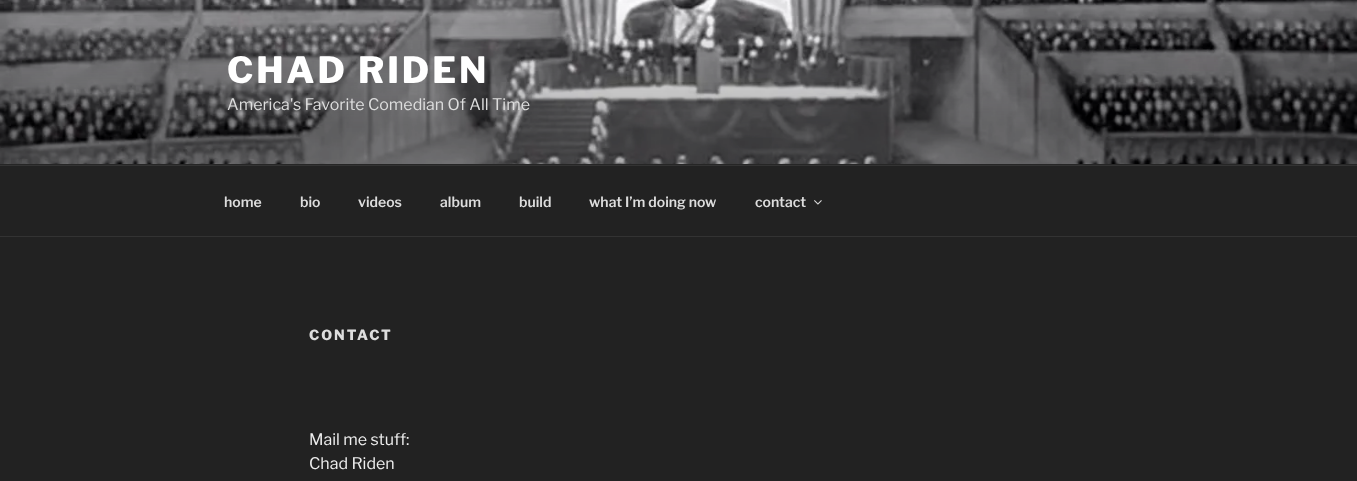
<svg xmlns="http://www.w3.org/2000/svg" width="1357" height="481">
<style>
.a{font:100 36px Libre Franklin;letter-spacing:2.9px;fill:#fff}
.b{font:100 16px 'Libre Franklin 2';fill:#ddd}
.c{font:100 14px 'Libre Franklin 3';fill:#ddd}
.d{font:100 14px Libre Franklin;letter-spacing:2px;fill:#ddd}
.e{font:100 16px 'Libre Franklin 2';fill:#eee}
</style>
<rect width="100%" height="100%" fill="#222"/>
<path fill="#262626" d="M0 164h1357v1H0z"/>
<image href="1.png" x="0" y="0" width="1357" height="164"/>
<path fill="#333" d="M0 165h1357v1H0z"/>
<path fill="#333" d="M0 236h1357v1H0z"/>
<image href="2.png" x="814" y="200" width="8" height="5"/>
<text class="a" x="227" y="83">CHAD RIDEN</text>
<text class="b" x="227" y="110">America's Favorite Comedian Of All Time</text>
<text class="c" x="224" y="207">home</text>
<text class="c" x="300" y="207">bio</text>
<text class="c" x="358" y="207">videos</text>
<text class="c" x="440" y="207">album</text>
<text class="c" x="519" y="207">build</text>
<text class="c" x="589" y="207">what I’m doing now</text>
<text class="c" x="755" y="207">contact</text>
<text class="d" x="309" y="340">CONTACT</text>
<text class="e" x="309" y="445">Mail me stuff:</text>
<text class="e" x="309" y="469">Chad Riden</text>
</svg>
